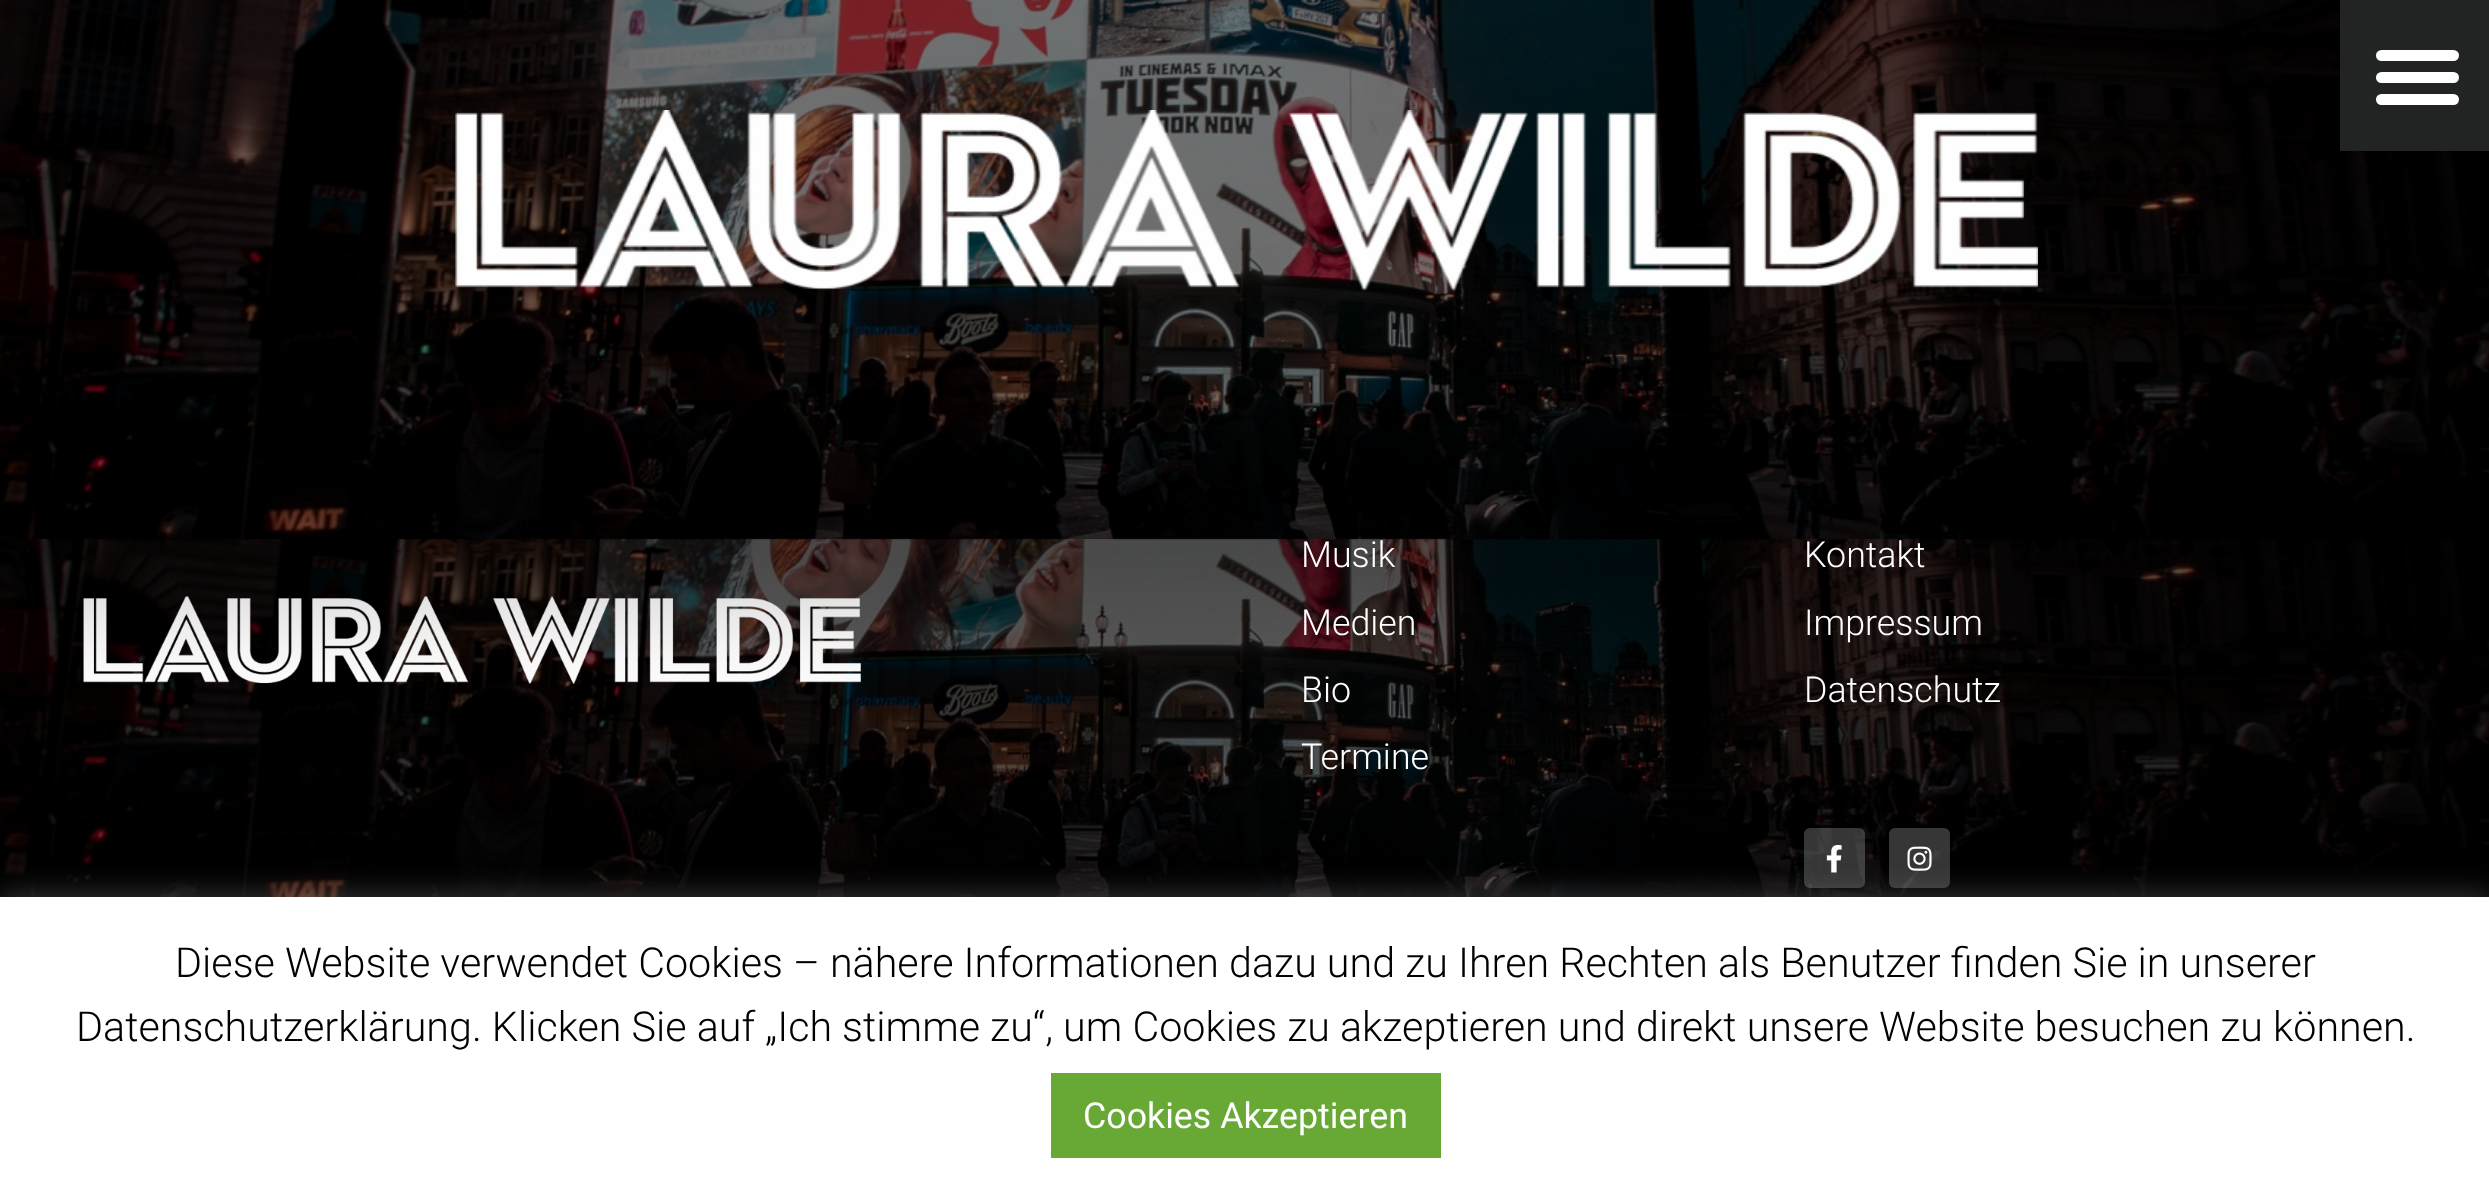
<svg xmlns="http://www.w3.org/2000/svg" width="2489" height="1204">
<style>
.a{font:300 35.75px Roboto;fill:#fff}
.b{font:300 41.25px Roboto;fill:#000}
.c{font:35.75px Roboto;fill:#fff}
</style>
<rect width="100%" height="100%" fill="#fff"/>
<image href="3.png" x="0" y="538" width="2489" height="359"/>
<image href="4.png" x="83" y="596" width="778" height="89"/>
<path fill="#0000002e" filter="blur(49.5px)" d="M-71 -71h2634v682H-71z"/>
<rect fill="#ffffff36" x="1804" y="828" width="61" height="60" rx="6"/>
<image href="5.png" x="1826" y="844" width="16" height="29"/>
<rect fill="#ffffff36" x="1889" y="828" width="61" height="60" rx="6"/>
<image href="6.png" x="1907" y="846" width="25" height="25"/>
<path fill="#acabab4d" filter="blur(14px)" d="M0 894h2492v308H0z"/>
<path fill="#fff" d="M0 897h2489v307H0z"/>
<path fill="#68a834" d="M1051 1073h390v85H1051z"/>
<text class="a" x="1301" y="567">Musik</text>
<text class="a" x="1301" y="635">Medien</text>
<text class="a" x="1301" y="702">Bio</text>
<text class="a" x="1301" y="769">Termine</text>
<text class="a" x="1804" y="567">Kontakt</text>
<image href="1.png" x="0" y="0" width="2489" height="541"/>
<path fill="#00000087" d="M0 0h2489v539H0z"/>
<path fill="#222423" d="M2340 0h149v151H2340z"/>
<rect fill="#fff" x="2376" y="50" width="83" height="11" rx="5.5"/>
<rect fill="#fff" x="2376" y="94" width="83" height="11" rx="5.5"/>
<rect fill="#fff" x="2376" y="72" width="83" height="11" rx="5.5"/>
<image href="2.png" x="455" y="110" width="1583" height="182"/>
<text class="a" x="1804" y="635">Impressum</text>
<text class="a" x="1804" y="702">Datenschutz</text>
<text class="b" x="175" y="977">Diese Website verwendet Cookies – nähere Informationen dazu und zu Ihren Rechten als Benutzer finden Sie in unserer</text>
<text class="b" x="76" y="1041">Datenschutzerklärung. Klicken Sie auf „Ich stimme zu“, um Cookies zu akzeptieren und direkt unsere Website besuchen zu können.</text>
<text class="c" x="1083" y="1128">Cookies Akzeptieren</text>
</svg>
